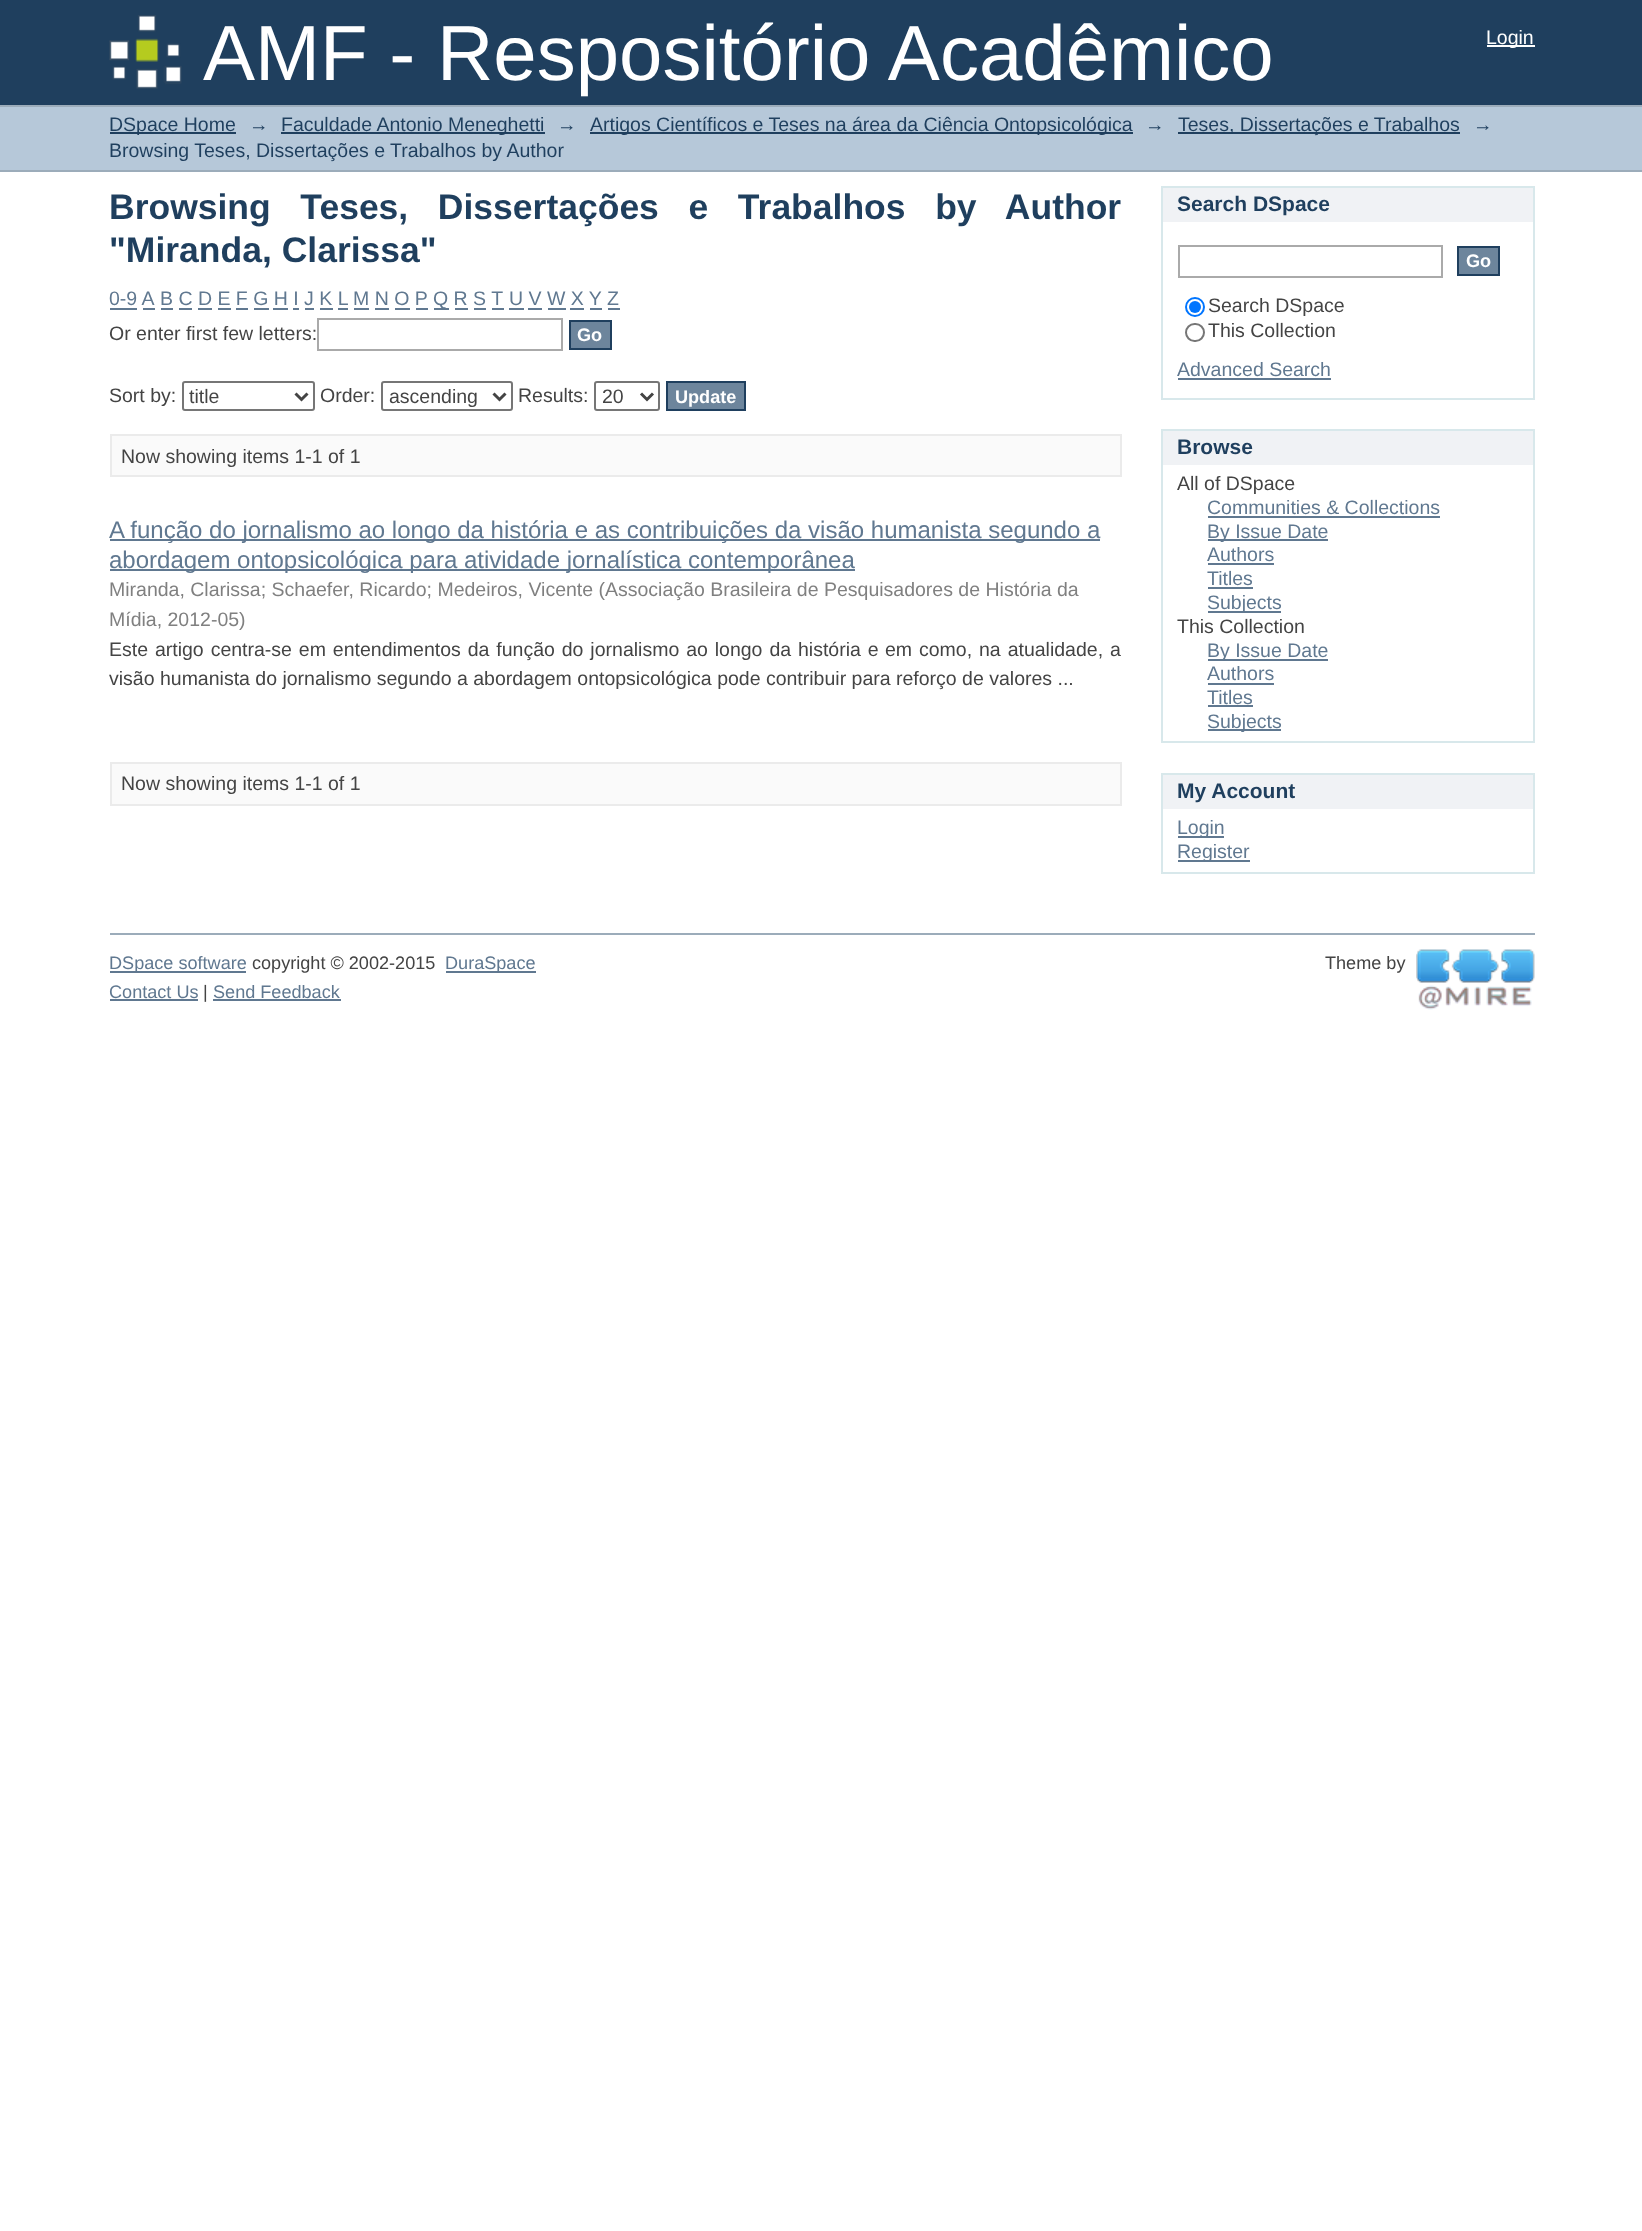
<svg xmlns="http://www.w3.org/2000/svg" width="1642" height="2231">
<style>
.a{font:78px Liberation Sans;fill:#fff}
.b{font:19.5px Liberation Sans;fill:#fff}
.c{font:19.5px Liberation Sans;fill:#1f3f5e}
.d{font:bold 35.5px Liberation Sans;fill:#1f3f5e}
.e{font:19.5px Liberation Sans;fill:#607890}
.f{font:19.5px Liberation Sans;fill:#444}
.g{font:bold 18.1px Liberation Sans;fill:#fff}
.h{font:24px Liberation Sans;fill:#607890}
.i{font:19.5px Liberation Sans;fill:#808080}
.j{font:bold 21px Liberation Sans;fill:#1f3f5e}
.k{font:18.1px Liberation Sans;fill:#607890}
.l{font:18.1px Liberation Sans;fill:#444}
</style>
<rect width="100%" height="100%" fill="#fff"/>
<path fill="#1f3f5e" d="M0 0h1642v105H0z"/>
<image href="1.png" x="109" y="15" width="73" height="74"/>
<path fill="#fff" d="M1487 45h48v2H1487z"/>
<path fill="#b6c8d9" d="M0 107h1642v63H0z"/>
<path fill="#9cacba" d="M0 105h1642v2H0z"/>
<path fill="#9cacba" d="M0 170h1642v2H0z"/>
<path fill="#1f3f5e" d="M110 132h126v2H110z"/>
<path fill="#1f3f5e" d="M281 132h264v2H281z"/>
<path fill="#1f3f5e" d="M590 132h543v2H590z"/>
<path fill="#1f3f5e" d="M1178 132h282v2H1178z"/>
<path fill="#607890" d="M110 308h27v2H110z"/>
<path fill="#607890" d="M161 308h12v2H161z"/>
<path fill="#607890" d="M354 308h15v2H354z"/>
<path fill="#607890" d="M434 308h15v2H434z"/>
<path fill="#607890" d="M509 308h15v2H509z"/>
<path fill="#607890" d="M608 308h12v2H608z"/>
<path fill="#607890" d="M143 308h12v2H143z"/>
<path fill="#607890" d="M179 308h13v2H179z"/>
<path fill="#607890" d="M198 308h14v2H198z"/>
<path fill="#607890" d="M218 308h13v2H218z"/>
<path fill="#607890" d="M236 308h12v2H236z"/>
<path fill="#607890" d="M254 308h15v2H254z"/>
<path fill="#607890" d="M273 308h15v2H273z"/>
<path fill="#607890" d="M293 308h6v2H293z"/>
<path fill="#607890" d="M305 308h9v2H305z"/>
<path fill="#607890" d="M320 308h13v2H320z"/>
<path fill="#607890" d="M338 308h10v2H338z"/>
<path fill="#607890" d="M375 308h14v2H375z"/>
<path fill="#607890" d="M395 308h15v2H395z"/>
<path fill="#607890" d="M416 308h12v2H416z"/>
<path fill="#607890" d="M455 308h13v2H455z"/>
<path fill="#607890" d="M474 308h12v2H474z"/>
<path fill="#607890" d="M492 308h12v2H492z"/>
<path fill="#607890" d="M528 308h14v2H528z"/>
<path fill="#607890" d="M548 308h18v2H548z"/>
<path fill="#607890" d="M570 308h14v2H570z"/>
<path fill="#607890" d="M590 308h12v2H590z"/>
<path fill="none" stroke="#aaa" stroke-width="2" d="M318 319h244v31H318z"/>
<path fill="#6d859c" stroke="#1f3f5e" stroke-width="2" d="M570 321h41v28H570z"/>
<rect fill="none" stroke="#767676" stroke-width="2" x="183" y="382" width="131" height="28" rx="2"/>
<path fill="none" stroke="#444" stroke-width="3" d="M295.5 393.5l6 6l6-6"/>
<rect fill="none" stroke="#767676" stroke-width="2" x="382" y="382" width="130" height="28" rx="2"/>
<path fill="none" stroke="#444" stroke-width="3" d="M493.5 393.5l6 6l6-6"/>
<rect fill="none" stroke="#767676" stroke-width="2" x="595" y="382" width="64" height="28" rx="2"/>
<path fill="none" stroke="#444" stroke-width="3" d="M641 393.5l6 6l6-6"/>
<path fill="#6d859c" stroke="#1f3f5e" stroke-width="2" d="M667 382h78v28H667z"/>
<path fill="#fafafa" stroke="#ebebeb" stroke-width="2" d="M111 435h1010v41H111z"/>
<path fill="#607890" d="M110 539h990v2H110z"/>
<path fill="#607890" d="M110 569h745v2H110z"/>
<path fill="#fafafa" stroke="#ebebeb" stroke-width="2" d="M111 763h1010v42H111z"/>
<path fill="#f0f2f5" d="M1163 188h370v34H1163z"/>
<path fill="#d8e8eb" d="M1161 186h374v2H1161z"/>
<path fill="#d8e8eb" d="M1533 186h2v213H1533z"/>
<path fill="#d8e8eb" d="M1161 186h2v36H1161z"/>
<path fill="#d8e8eb" d="M1161 398h374v2H1161z"/>
<path fill="#d8e8eb" d="M1161 222h2v177H1161z"/>
<path fill="none" stroke="#aaa" stroke-width="2" d="M1179 246h263v31H1179z"/>
<path fill="#6d859c" stroke="#1f3f5e" stroke-width="2" d="M1458 247h41v28H1458z"/>
<circle fill="none" stroke="#0075ff" stroke-width="2" cx="1195" cy="307" r="9"/>
<circle fill="#0075ff" cx="1195" cy="307" r="6"/>
<rect fill="none" stroke="#767676" stroke-width="2" x="1186" y="324" width="18" height="17" rx="8.5"/>
<path fill="#607890" d="M1178 378h153v2H1178z"/>
<path fill="#f0f2f5" d="M1163 431h370v34H1163z"/>
<path fill="#d8e8eb" d="M1161 429h374v2H1161z"/>
<path fill="#d8e8eb" d="M1533 429h2v314H1533z"/>
<path fill="#d8e8eb" d="M1161 429h2v36H1161z"/>
<path fill="#d8e8eb" d="M1161 741h374v2H1161z"/>
<path fill="#d8e8eb" d="M1161 465h2v278H1161z"/>
<path fill="#607890" d="M1208 516h232v2H1208z"/>
<path fill="#607890" d="M1208 539h120v2H1208z"/>
<path fill="#607890" d="M1208 563h66v2H1208z"/>
<path fill="#607890" d="M1208 587h45v2H1208z"/>
<path fill="#607890" d="M1208 611h73v2H1208z"/>
<path fill="#607890" d="M1208 659h120v2H1208z"/>
<path fill="#607890" d="M1208 683h66v2H1208z"/>
<path fill="#607890" d="M1208 705h45v2H1208z"/>
<path fill="#607890" d="M1208 729h73v2H1208z"/>
<path fill="#f0f2f5" d="M1163 775h370v34H1163z"/>
<path fill="#d8e8eb" d="M1161 773h374v2H1161z"/>
<path fill="#d8e8eb" d="M1533 773h2v100H1533z"/>
<path fill="#d8e8eb" d="M1161 773h2v36H1161z"/>
<path fill="#d8e8eb" d="M1161 872h374v2H1161z"/>
<path fill="#d8e8eb" d="M1161 809h2v64H1161z"/>
<path fill="#607890" d="M1178 836h46v2H1178z"/>
<path fill="#607890" d="M1178 860h72v2H1178z"/>
<path fill="#9cacba" d="M110 933h1425v2H110z"/>
<path fill="#607890" d="M110 971h136v2H110z"/>
<path fill="#607890" d="M446 971h90v2H446z"/>
<image href="2.png" x="1416" y="949" width="119" height="61"/>
<path fill="#607890" d="M110 999h88v2H110z"/>
<path fill="#607890" d="M213 999h128v2H213z"/>
<text class="a" x="203" y="80">AMF - Respositório Acadêmico</text>
<text class="b" x="1486" y="44">Login</text>
<text class="c" x="109" y="131">DSpace Home</text>
<text class="c" x="249" y="131">→</text>
<text class="c" x="281" y="131">Faculdade Antonio Meneghetti</text>
<text class="c" x="557" y="131">→</text>
<text class="c" x="590" y="131">Artigos Científicos e Teses na área da Ciência Ontopsicológica</text>
<text class="c" x="1145" y="131">→</text>
<text class="c" x="1178" y="131">Teses, Dissertações e Trabalhos</text>
<text class="c" x="1473" y="131">→</text>
<text class="c" x="109" y="157">Browsing Teses, Dissertações e Trabalhos by Author</text>
<text class="d" x="109" y="219" word-spacing="19.75">Browsing Teses, Dissertações e Trabalhos by Author</text>
<text class="d" x="109" y="262">"Miranda, Clarissa"</text>
<text class="e" x="109" y="305">0-9 A</text>
<text class="e" x="160" y="305">B C D E F G H I J K L</text>
<text class="e" x="353" y="305">M N O P</text>
<text class="e" x="433" y="305">Q R S T</text>
<text class="e" x="509" y="305">U V W X Y</text>
<text class="e" x="607" y="305">Z</text>
<text class="f" x="109" y="340">Or enter first few letters:</text>
<text class="g" x="577" y="341">Go</text>
<text class="f" x="109" y="402">Sort by:</text>
<text class="f" x="189" y="403">title</text>
<text class="f" x="320" y="402">Order:</text>
<text class="f" x="389" y="403">ascending</text>
<text class="f" x="518" y="402">Results:</text>
<text class="f" x="602" y="403">20</text>
<text class="g" x="675" y="403">Update</text>
<text class="f" x="121" y="463">Now showing items 1-1 of 1</text>
<text class="h" x="109" y="538">A função do jornalismo ao longo da história e as contribuições da visão humanista segundo a</text>
<text class="h" x="109" y="568">abordagem ontopsicológica para atividade jornalística contemporânea</text>
<text class="i" x="109" y="596">Miranda, Clarissa; Schaefer, Ricardo; Medeiros, Vicente (Associação Brasileira de Pesquisadores de História da</text>
<text class="i" x="109" y="626">Mídia, 2012-05)</text>
<text class="f" x="109" y="656" word-spacing="1.5">Este artigo centra-se em entendimentos da função do jornalismo ao longo da história e</text>
<text class="f" x="885" y="656" word-spacing="1.5">em como, na atualidade, a</text>
<text class="f" x="109" y="685">visão humanista do jornalismo segundo a abordagem ontopsicológica pode contribuir para reforço de valores ...</text>
<text class="f" x="121" y="790">Now showing items 1-1 of 1</text>
<text class="j" x="1177" y="211">Search DSpace</text>
<text class="g" x="1466" y="267">Go</text>
<text class="f" x="1208" y="312">Search DSpace</text>
<text class="f" x="1208" y="337">This Collection</text>
<text class="e" x="1177" y="376">Advanced Search</text>
<text class="j" x="1177" y="454">Browse</text>
<text class="f" x="1177" y="490">All of DSpace</text>
<text class="e" x="1207" y="514">Communities &amp; Collections</text>
<text class="e" x="1207" y="538">By Issue Date</text>
<text class="e" x="1207" y="561">Authors</text>
<text class="e" x="1207" y="585">Titles</text>
<text class="e" x="1207" y="609">Subjects</text>
<text class="f" x="1177" y="633">This Collection</text>
<text class="e" x="1207" y="657">By Issue Date</text>
<text class="e" x="1207" y="680">Authors</text>
<text class="e" x="1207" y="704">Titles</text>
<text class="e" x="1207" y="728">Subjects</text>
<text class="j" x="1177" y="798">My Account</text>
<text class="e" x="1177" y="834">Login</text>
<text class="e" x="1177" y="858">Register</text>
<text class="k" x="109" y="969">DSpace software</text>
<text class="l" x="252" y="969">copyright © 2002-2015</text>
<text class="k" x="445" y="969">DuraSpace</text>
<text class="l" x="1325" y="969">Theme by</text>
<text class="k" x="109" y="998">Contact Us</text>
<text class="l" x="203" y="998">|</text>
<text class="k" x="213" y="998">Send Feedback</text>
</svg>
